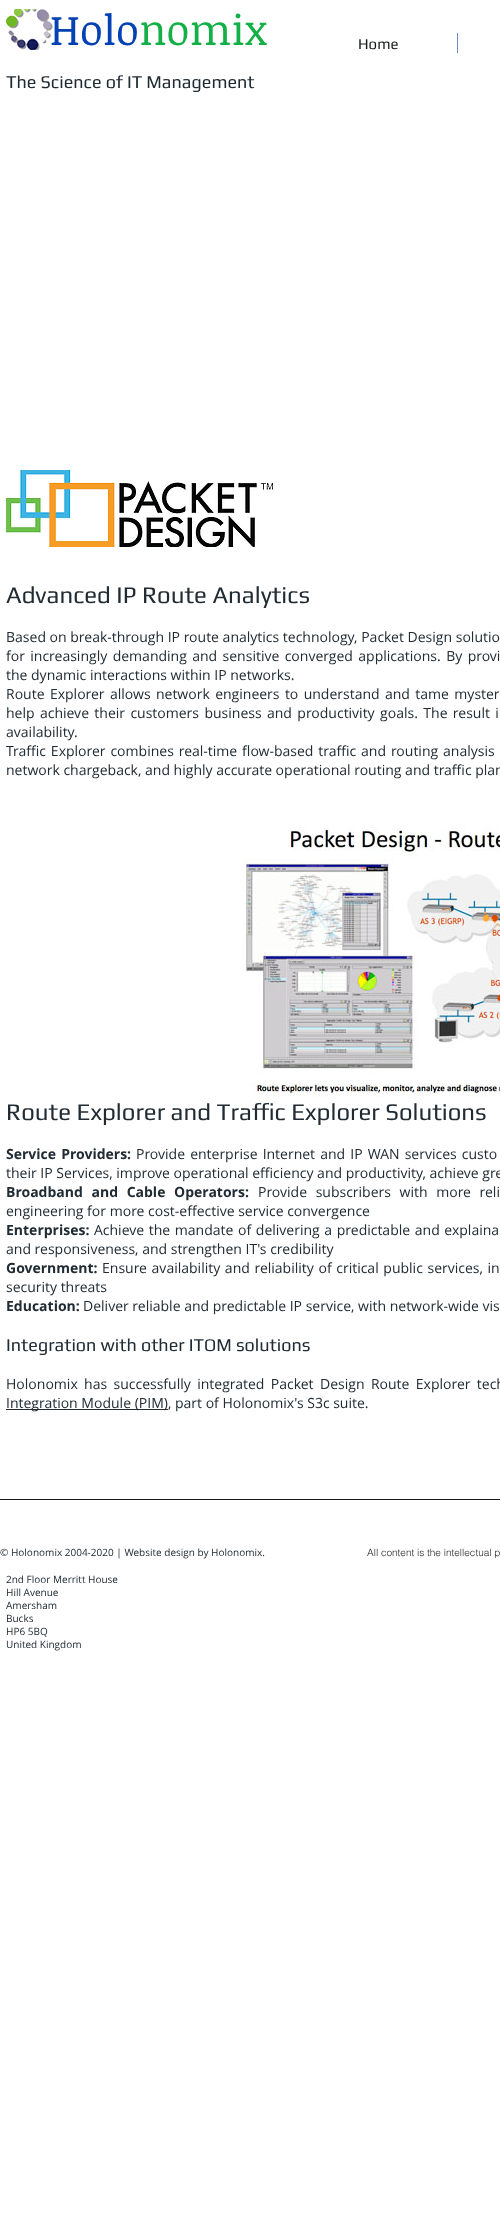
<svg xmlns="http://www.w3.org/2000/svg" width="500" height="2213">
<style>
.a{font:42px Noticia Text;fill:#0441b3}
.b{font:42px Noticia Text;fill:#12b046}
.c{font:15px Play;fill:#181a1c}
.d{font:18px Play;fill:#202b33}
.e{font:24px Play;fill:#202b33}
.f{font:14px Open Sans;fill:#202b33}
.g{font:bold 14px Open Sans;fill:#202b33}
.h{font:10px Open Sans;fill:#202b33}
.i{font:300 10px helvetica;fill:#181a1c}
</style>
<rect width="100%" height="100%" fill="#fff"/>
<image href="1.png" x="6" y="9" width="47" height="41"/>
<path fill="#688bcc" d="M457 33h1v20H457z"/>
<image href="2.png" x="6" y="470" width="267" height="77"/>
<path fill="#202b33" d="M6 1409h162v1H6z"/>
<image href="3.png" x="242" y="827" width="258" height="270"/>
<path fill="#181a1c" d="M0 1499h500v1H0z"/>
<text class="a" x="50" y="45">Holo</text>
<text class="b" x="139" y="45">nomix</text>
<text class="c" x="358" y="49">Home</text>
<text class="d" x="6" y="88">The Science of IT Management</text>
<text class="e" x="6" y="603">Advanced IP Route Analytics</text>
<text class="f" x="6" y="642">Based on break-through IP route analytics technology, Packet Design solutio</text>
<text class="f" x="6" y="661" word-spacing="1.75">for increasingly demanding and sensitive converged applications. By provi</text>
<text class="f" x="6" y="680">the dynamic interactions within IP networks.</text>
<text class="f" x="6" y="699" word-spacing="1.75">Route Explorer allows network engineers to understand and tame myster</text>
<text class="f" x="6" y="718" word-spacing="1.75">help achieve their customers business and productivity goals. The result i</text>
<text class="f" x="6" y="737">availability.</text>
<text class="f" x="6" y="756" word-spacing="1.25">Traffic Explorer combines real-time flow-based traffic and routing analysis</text>
<text class="f" x="6" y="775">network chargeback, and highly accurate operational routing and traffic plan</text>
<text class="e" x="6" y="1120">Route Explorer and Traffic Explorer Solutions</text>
<text class="g" x="6" y="1159" word-spacing="1.5">Service Providers:</text>
<text class="f" x="136" y="1159" word-spacing="1.5">Provide enterprise Internet and IP WAN services custo</text>
<text class="f" x="6" y="1178">their IP Services, improve operational efficiency and productivity, achieve gre</text>
<text class="g" x="6" y="1197" word-spacing="5">Broadband and Cable Operators:</text>
<text class="f" x="258" y="1197" word-spacing="5">Provide subscribers with more reli</text>
<text class="f" x="6" y="1216">engineering for more cost-effective service convergence</text>
<text class="g" x="6" y="1235">Enterprises:</text>
<text class="f" x="94" y="1235" word-spacing="1">Achieve the mandate of delivering a predictable and explaina</text>
<text class="f" x="6" y="1254">and responsiveness, and strengthen IT's credibility</text>
<text class="g" x="6" y="1273">Government:</text>
<text class="f" x="102" y="1273" word-spacing="1">Ensure availability and reliability of critical public services, in</text>
<text class="f" x="6" y="1292">security threats</text>
<text class="g" x="6" y="1311">Education:</text>
<text class="f" x="83" y="1311">Deliver reliable and predictable IP service, with network-wide vis</text>
<text class="d" x="6" y="1351">Integration with other ITOM solutions</text>
<text class="f" x="6" y="1389" word-spacing="2.75">Holonomix has successfully integrated Packet Design Route Explorer tech</text>
<text class="f" x="6" y="1408">Integration Module (PIM), part of Holonomix's S3c suite.</text>
<text class="h" x="0" y="1556">© Holonomix 2004-2020 | Website design by Holonomix.</text>
<text class="i" x="367" y="1556">All content is the intellectual p</text>
<text class="h" x="6" y="1583">2nd Floor Merritt House</text>
<text class="h" x="6" y="1596">Hill Avenue</text>
<text class="h" x="6" y="1609">Amersham</text>
<text class="h" x="6" y="1622">Bucks</text>
<text class="h" x="6" y="1635">HP6 5BQ</text>
<text class="h" x="6" y="1648">United Kingdom</text>
</svg>
